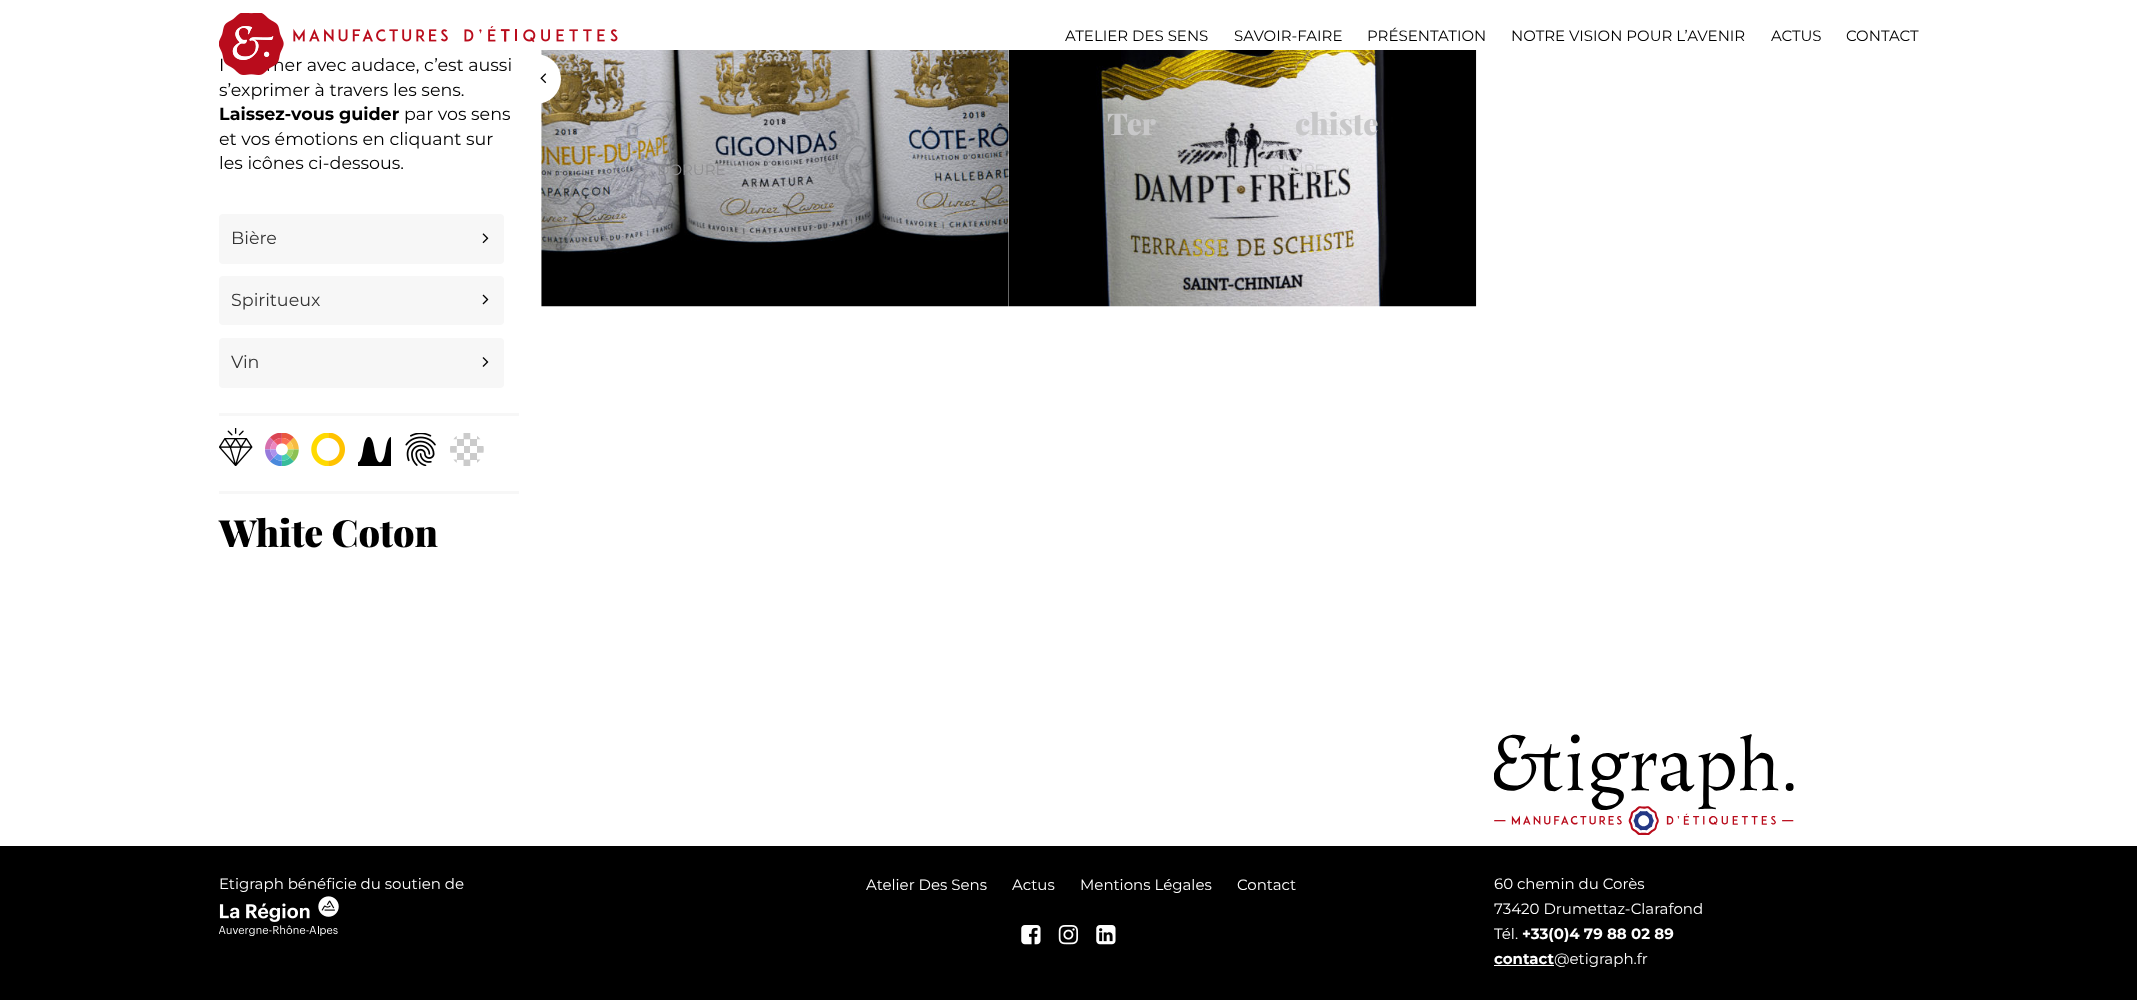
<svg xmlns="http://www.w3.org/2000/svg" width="2137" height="1000">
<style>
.a{font:15px Montserrat;fill:#000}
.b{font:17.5px Montserrat;fill:#000}
.c{font:bold 17.5px Montserrat;fill:#000}
.d{font:17.5px Montserrat;fill:#343434}
.e{font:900 37.5px Playfair Display;fill:#000}
.f{font:15px Montserrat;fill:#8f8f91}
.g{font:900 30px Playfair Display;fill:#c8c8c9}
.h{font:15px Montserrat;fill:#c8c8c9}
.i{font:15px Montserrat;fill:#fff}
.j{font:bold 15px Montserrat;fill:#fff}
</style>
<rect width="100%" height="100%" fill="#fff"/>
<rect fill="#f7f7f7" x="219" y="214" width="285" height="50" rx="4"/>
<image href="2.png" x="482" y="233" width="7" height="11"/>
<rect fill="#f7f7f7" x="219" y="276" width="285" height="49" rx="4"/>
<image href="3.png" x="482" y="294" width="7" height="11"/>
<rect fill="#f7f7f7" x="219" y="338" width="285" height="50" rx="4"/>
<image href="4.png" x="482" y="357" width="7" height="10"/>
<path fill="#f7f7f7" d="M219 413h300v3H219z"/>
<image href="5.png" x="219" y="428" width="34" height="38"/>
<image href="6.png" x="265" y="433" width="34" height="33"/>
<image href="7.png" x="311" y="433" width="34" height="33"/>
<image href="8.png" x="358" y="437" width="33" height="29"/>
<image href="9.png" x="405" y="433" width="31" height="33"/>
<image href="10.png" x="450" y="433" width="34" height="33"/>
<path fill="#f7f7f7" d="M219 491h300v3H219z"/>
<image href="12.png" x="541" y="50" width="468" height="257"/>
<circle fill="#fff" cx="536" cy="79" r="25"/>
<image href="11.png" x="540" y="73" width="7" height="11"/>
<image href="13.png" x="1008" y="50" width="469" height="257"/>
<path fill="#000" d="M0 846h2137v154H0z"/>
<image href="14.png" x="219" y="896" width="120" height="40"/>
<image href="15.png" x="1021" y="925" width="20" height="20"/>
<image href="16.png" x="1058" y="925" width="21" height="20"/>
<image href="17.png" x="1096" y="925" width="20" height="20"/>
<image href="18.png" x="1494" y="734" width="300" height="101"/>
<path fill="#fff" d="M1494 965h60v1H1494z"/>
<text class="a" x="1065" y="41">ATELIER DES SENS</text>
<text class="a" x="1234" y="41">SAVOIR-FAIRE</text>
<text class="a" x="1367" y="41">PRÉSENTATION</text>
<text class="a" x="1511" y="41">NOTRE VISION POUR L’AVENIR</text>
<text class="a" x="1771" y="41">ACTUS</text>
<text class="a" x="1846" y="41">CONTACT</text>
<text class="b" x="219" y="71">I</text>
<text class="b" x="266" y="71">mer avec audace, c’est aussi</text>
<image href="1.png" x="219" y="13" width="399" height="62"/>
<text class="b" x="219" y="96">s’exprimer à travers les sens.</text>
<text class="c" x="219" y="120">Laissez-vous guider</text>
<text class="b" x="404" y="120">par vos sens</text>
<text class="b" x="219" y="145">et vos émotions en cliquant sur</text>
<text class="b" x="219" y="169">les icônes ci-dessous.</text>
<text class="d" x="231" y="244">Bière</text>
<text class="d" x="231" y="306">Spiritueux</text>
<text class="d" x="231" y="368">Vin</text>
<text class="e" x="219" y="547">White Coton</text>
<text class="f" x="657" y="175">DORURE</text>
<text class="g" x="1107" y="135">Ter</text>
<text class="g" x="1295" y="135">chiste</text>
<text class="h" x="1256" y="175">DORURE</text>
<text class="i" x="219" y="889">Etigraph bénéficie du soutien de</text>
<text class="i" x="866" y="890">Atelier Des Sens</text>
<text class="i" x="1012" y="890">Actus</text>
<text class="i" x="1080" y="890">Mentions Légales</text>
<text class="i" x="1237" y="890">Contact</text>
<text class="i" x="1494" y="889">60 chemin du Corès</text>
<text class="i" x="1494" y="914">73420 Drumettaz-Clarafond</text>
<text class="i" x="1494" y="939">Tél.</text>
<text class="j" x="1522" y="939">+33(0)4 79 88 02 89</text>
<text class="j" x="1494" y="964">contact</text>
<text class="i" x="1554" y="964">@etigraph.fr</text>
</svg>
